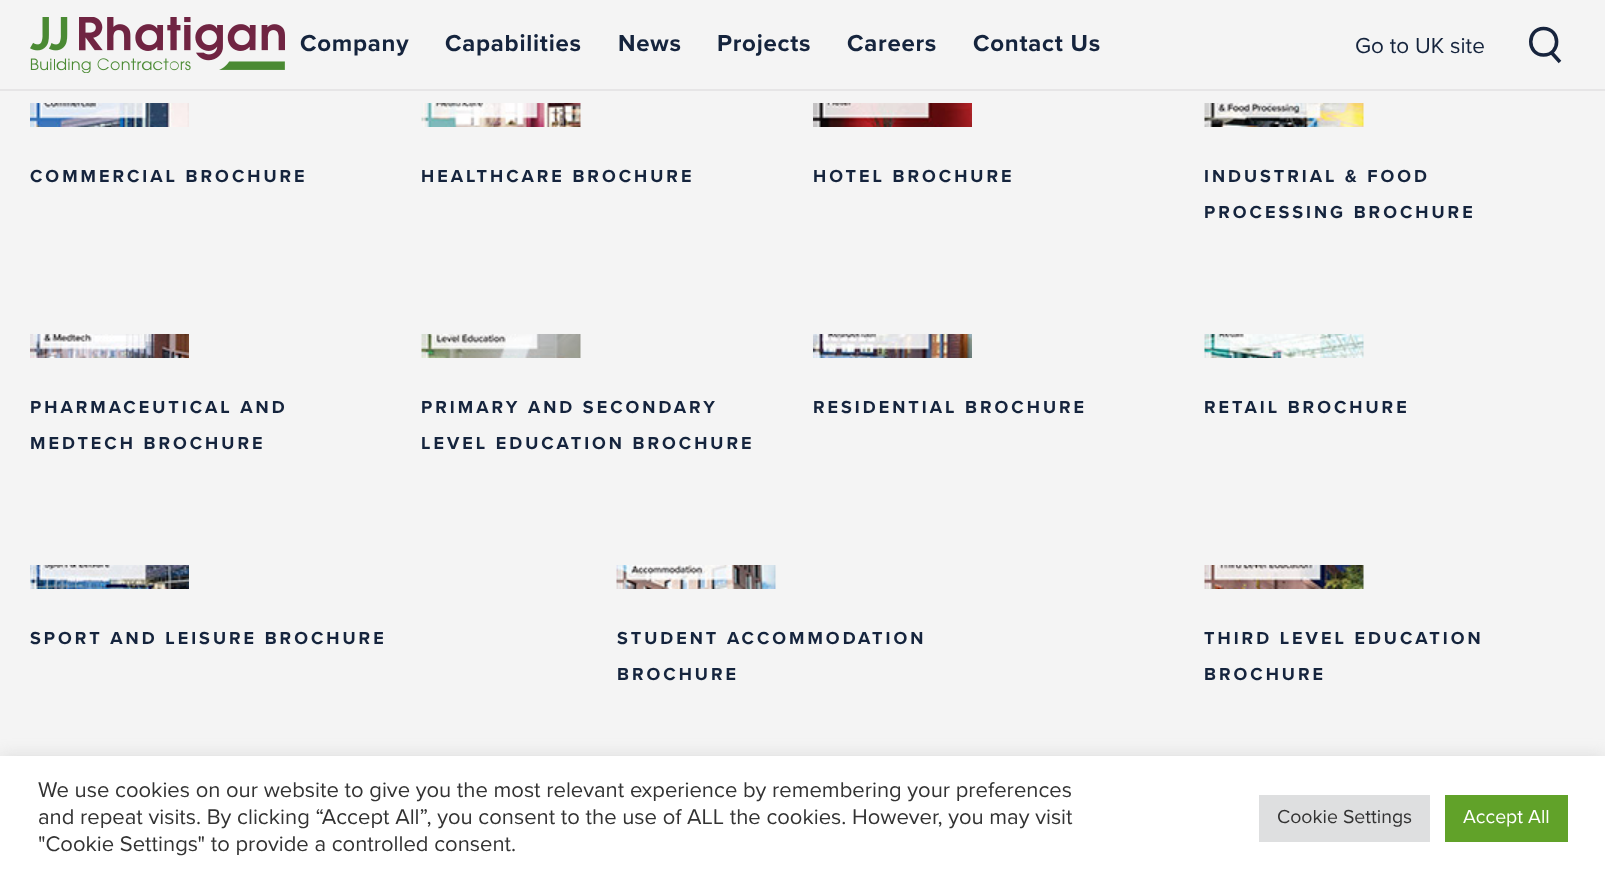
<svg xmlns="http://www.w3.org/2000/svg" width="1605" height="879">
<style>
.a{font:bold 24px Proxima Nova;letter-spacing:0.75px;fill:#15243d}
.b{font:22.5px Proxima Nova;fill:#15243d}
.c{font:bold 18px Proxima Nova;letter-spacing:3px;fill:#15243d}
.d{font:22px Proxima Nova;fill:#333}
.e{font:19.5px Proxima Nova;fill:#333}
.f{font:19.5px Proxima Nova;fill:#fff}
</style>
<rect width="100%" height="100%" fill="#f4f4f4"/>
<image href="1.png" x="30" y="17" width="255" height="56"/>
<path fill="none" stroke="#17243d" stroke-width="3.5" d="M1543.5 55c17.5 0 17.5-26.5 0-26.5c-17 0-17 26.5 0 26.5zm7-3.5l9.5 10.5"/>
<path fill="#e6e5e6" d="M0 89h1605v2H0z"/>
<image href="2.png" x="30" y="103" width="159" height="24"/>
<image href="3.png" x="421" y="103" width="160" height="24"/>
<image href="4.png" x="813" y="103" width="159" height="24"/>
<image href="5.png" x="1204" y="103" width="160" height="24"/>
<image href="6.png" x="30" y="334" width="159" height="24"/>
<image href="7.png" x="421" y="334" width="160" height="24"/>
<image href="8.png" x="813" y="334" width="159" height="24"/>
<image href="9.png" x="1204" y="334" width="160" height="24"/>
<image href="10.png" x="30" y="565" width="159" height="24"/>
<image href="11.png" x="616" y="565" width="160" height="24"/>
<image href="12.png" x="1204" y="565" width="160" height="24"/>
<path fill="#acabab4d" filter="blur(7.5px)" d="M0 755h1605v123H0z"/>
<path fill="#fff" d="M0 756h1605v123H0z"/>
<path fill="#dedfe0" d="M1259 795h171v47H1259z"/>
<path fill="#61a229" d="M1445 795h123v47H1445z"/>
<text class="a" x="300" y="51">Company</text>
<text class="a" x="445" y="51">Capabilities</text>
<text class="a" x="618" y="51">News</text>
<text class="a" x="717" y="51">Projects</text>
<text class="a" x="847" y="51">Careers</text>
<text class="a" x="973" y="51">Contact Us</text>
<text class="b" x="1355" y="53">Go to UK site</text>
<text class="c" x="30" y="182">COMMERCIAL BROCHURE</text>
<text class="c" x="421" y="182">HEALTHCARE BROCHURE</text>
<text class="c" x="813" y="182">HOTEL BROCHURE</text>
<text class="c" x="1204" y="182">INDUSTRIAL &amp; FOOD</text>
<text class="c" x="1204" y="218">PROCESSING BROCHURE</text>
<text class="c" x="30" y="413">PHARMACEUTICAL AND</text>
<text class="c" x="30" y="449">MEDTECH BROCHURE</text>
<text class="c" x="421" y="413">PRIMARY AND SECONDARY</text>
<text class="c" x="421" y="449">LEVEL EDUCATION BROCHURE</text>
<text class="c" x="813" y="413">RESIDENTIAL BROCHURE</text>
<text class="c" x="1204" y="413">RETAIL BROCHURE</text>
<text class="c" x="30" y="644">SPORT AND LEISURE BROCHURE</text>
<text class="c" x="617" y="644">STUDENT ACCOMMODATION</text>
<text class="c" x="617" y="680">BROCHURE</text>
<text class="c" x="1204" y="644">THIRD LEVEL EDUCATION</text>
<text class="c" x="1204" y="680">BROCHURE</text>
<text class="d" x="38" y="797">We use cookies on our website to give you the most relevant experience by remembering your preferences</text>
<text class="d" x="38" y="824">and repeat visits. By clicking “Accept All”, you consent to the use of ALL the cookies. However, you may visit</text>
<text class="d" x="38" y="851">"Cookie Settings" to provide a controlled consent.</text>
<text class="e" x="1277" y="823">Cookie Settings</text>
<text class="f" x="1463" y="823">Accept All</text>
</svg>
